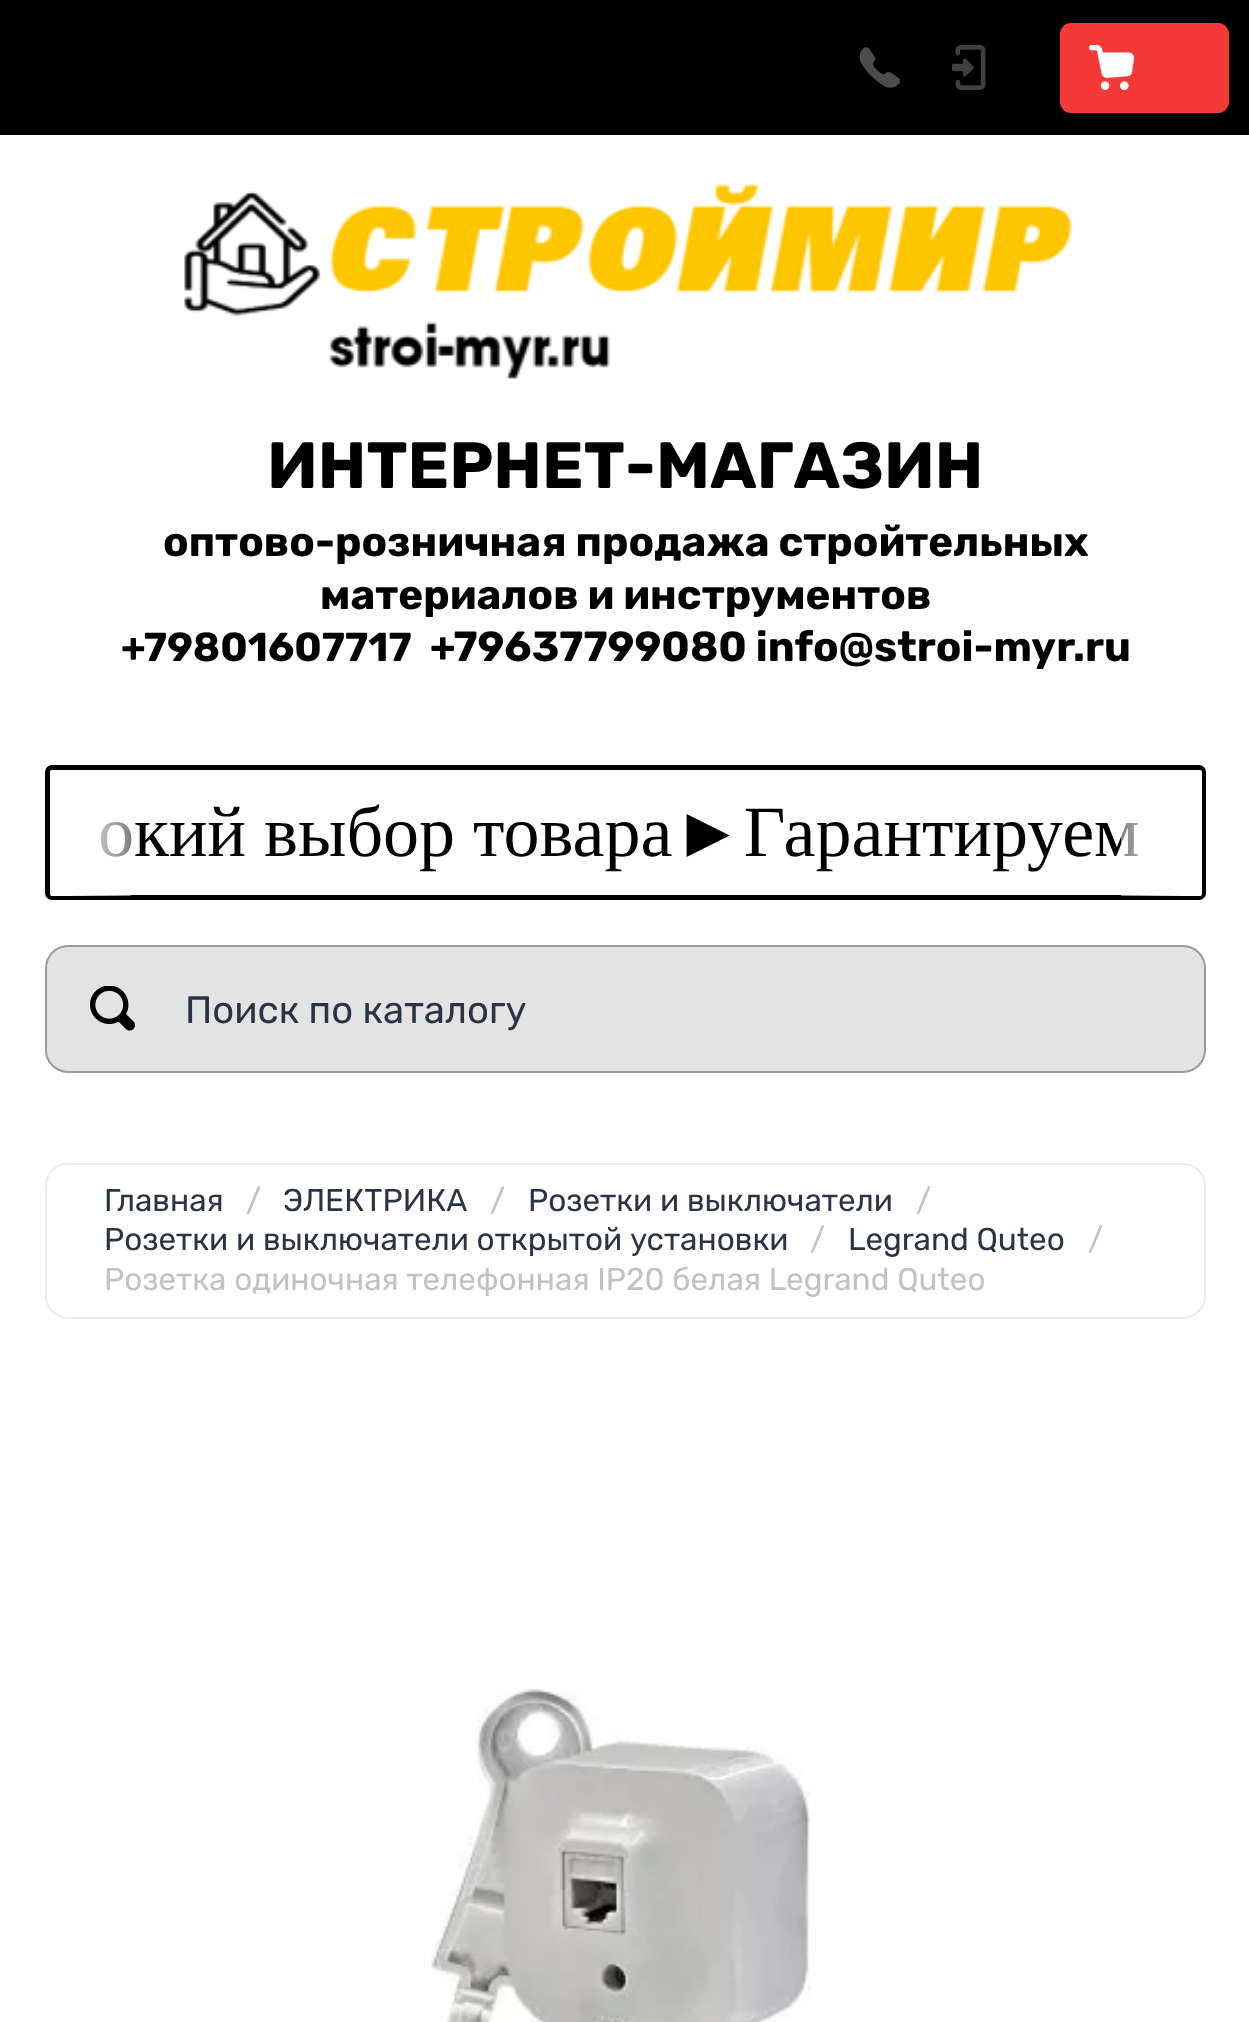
<svg xmlns="http://www.w3.org/2000/svg" width="1249" height="2022">
<style>
.a{font:bold 65.25px Rubik;fill:#000}
.b{font:bold 42px Rubik;fill:#000}
.c{font:bold 40.5px Rubik;fill:#000}
.d{font:72px Liberation Serif;fill:#000}
.e{font:38.25px Rubik;fill:#2c3345}
.f{font:31.5px Rubik;fill:#2c3345}
.g{font:31.5px Rubik;fill:#c0c2c7}
</style>
<defs>
<linearGradient id="g1" gradientUnits="userSpaceOnUse" x1="68" y1="837" x2="131" y2="837"><stop offset="0" stop-color="#fff"/><stop offset="1" stop-color="#fff" stop-opacity="0"/></linearGradient>
<linearGradient id="g2" gradientUnits="userSpaceOnUse" x1="1121" y1="837" x2="1184" y2="837"><stop offset="0" stop-color="#fff" stop-opacity="0"/><stop offset="1" stop-color="#fff"/></linearGradient>
</defs>
<rect width="100%" height="100%" fill="#fff"/>
<path fill="#000" d="M0 0h1249v135H0z"/>
<image href="1.png" x="860" y="47" width="40" height="41"/>
<image href="2.png" x="952" y="45" width="34" height="45"/>
<rect fill="#f43939" x="1060" y="23" width="169" height="90" rx="11"/>
<image href="3.png" x="1089" y="45" width="45" height="45"/>
<image href="4.png" x="184" y="184" width="888" height="195"/>
<rect fill="none" stroke="#000" stroke-width="5" x="47.5" y="767.5" width="1156" height="130" rx="4.5"/>
<rect fill="#e3e3e3" stroke="#9b9b9b" stroke-width="2" x="46" y="946" width="1159" height="126" rx="22"/>
<image href="5.png" x="90" y="986" width="45" height="45"/>
<rect fill="none" stroke="#eaebec" stroke-width="2" x="46" y="1164" width="1159" height="154" rx="22"/>
<image href="6.png" x="431" y="1688" width="380" height="334"/>
<text class="a" x="267" y="488">ИНТЕРНЕТ-МАГАЗИН</text>
<text class="b" x="163" y="556">оптово-розничная продажа стройтельных</text>
<text class="b" x="320" y="609">материалов и инструментов</text>
<text class="c" x="121" y="661">+79801607717</text>
<text class="b" x="430" y="661">+79637799080 info@stroi-myr.ru</text>
<text class="d" x="98" y="856">окий выбор товара►Гарантируем</text>
<path fill="#ffffff80" d="M52 770h79v126h-79c-1 0-2-1-2-2v-122c0-1 1-2 2-2z"/>
<path fill="#fff" d="M52 770h16v126h-16c-1 0-2-1-2-2v-122c0-1 1-2 2-2z"/>
<path fill="url(#g1)" d="M68 822h62v74H68z"/>
<path fill="#ffffff80" d="M1121 770h79c1 0 2 1 2 2v122c0 1-1 2-2 2h-79z"/>
<path fill="url(#g2)" d="M1122 823h62v73H1122z"/>
<path fill="#fff" d="M1184 770h16c1 0 2 1 2 2v122c0 1-1 2-2 2h-16z"/>
<text class="e" x="185" y="1023">Поиск по каталогу</text>
<text class="f" x="104" y="1211">Главная</text>
<text class="g" x="246" y="1211">/</text>
<text class="f" x="283" y="1211">ЭЛЕКТРИКА</text>
<text class="g" x="490" y="1211">/</text>
<text class="f" x="528" y="1211">Розетки и выключатели</text>
<text class="g" x="916" y="1211">/</text>
<text class="f" x="104" y="1250">Розетки и выключатели открытой установки</text>
<text class="g" x="810" y="1250">/</text>
<text class="f" x="848" y="1250">Legrand Quteo</text>
<text class="g" x="1088" y="1250">/</text>
<text class="g" x="104" y="1290">Розетка одиночная телефонная IP20 белая Legrand Quteo</text>
</svg>
